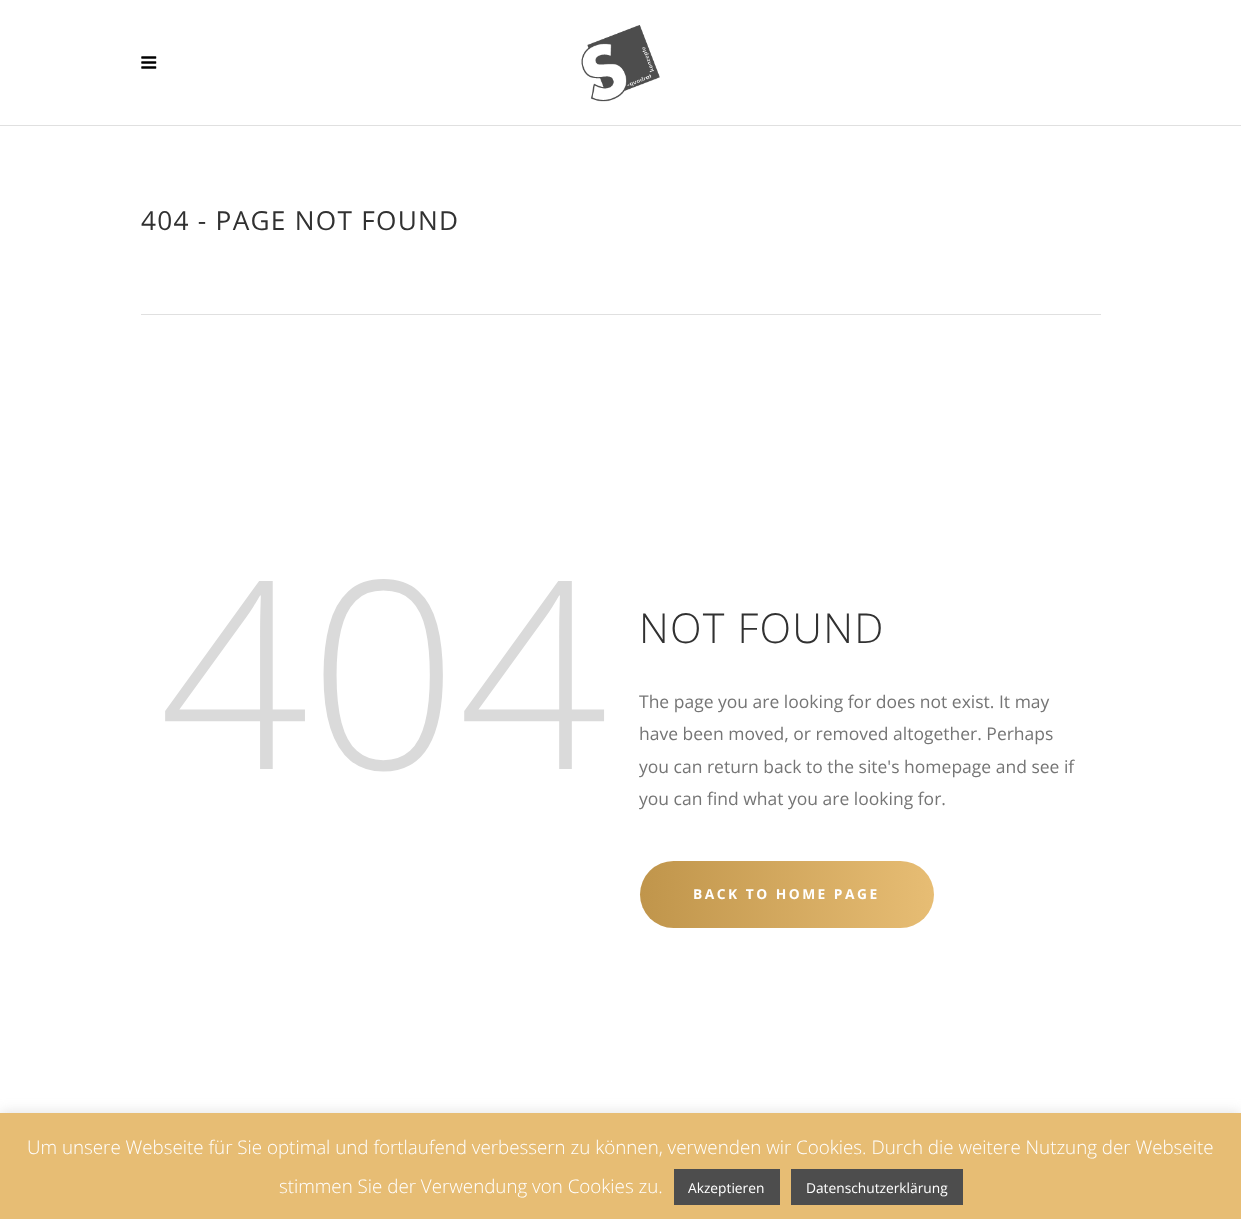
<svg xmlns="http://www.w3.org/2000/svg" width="1241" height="1219">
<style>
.a{font:26.25px Open Sans;letter-spacing:1.25px;fill:#313131}
.b{font:300 262px Open Sans;fill:#dadada}
.c{font:300 41.25px Open Sans;letter-spacing:1.25px;fill:#313131}
.d{font:17.5px Open Sans;fill:#757575}
.e{font:bold 13.75px Open Sans;letter-spacing:2.5px;fill:#fff}
.f{font:300 18.75px Open Sans;fill:#fff}
.g{font:13.75px Open Sans;fill:#fff}
</style>
<defs>
<linearGradient id="g1" gradientUnits="userSpaceOnUse" x1="640" y1="894" x2="934" y2="894"><stop offset="0" stop-color="#c0954b"/><stop offset="1" stop-color="#e7bd74"/></linearGradient>
</defs>
<rect width="100%" height="100%" fill="#fff"/>
<path fill="#e0e0e0" d="M0 125h1241v1H0z"/>
<image href="1.png" x="141" y="56" width="16" height="13"/>
<image href="2.png" x="581" y="25" width="79" height="77"/>
<path fill="#e0e0e0" d="M141 314h960v1H141z"/>
<rect fill="url(#g1)" x="640" y="861" width="294" height="67" rx="33.5"/>
<path fill="#acabab4d" filter="blur(6px)" d="M0 1111h1241v108H0z"/>
<path fill="#e7bd74" d="M0 1113h1241v106H0z"/>
<path fill="#4d4d4d" d="M674 1169h106v36H674z"/>
<path fill="#4d4d4d" d="M791 1169h172v36H791z"/>
<text class="a" x="141" y="230">404 - PAGE NOT FOUND</text>
<text class="b" x="159" y="769">404</text>
<text class="c" x="639" y="643">NOT FOUND</text>
<text class="d" x="639" y="708">The page you are looking for does not exist. It may</text>
<text class="d" x="639" y="740">have been moved, or removed altogether. Perhaps</text>
<text class="d" x="639" y="773">you can return back to the site's homepage and see if</text>
<text class="d" x="639" y="805">you can find what you are looking for.</text>
<text class="e" x="693" y="899">BACK TO HOME PAGE</text>
<text class="f" x="27" y="1154">Um unsere Webseite für Sie optimal und fortlaufend verbessern zu können, verwenden wir Cookies. Durch die weitere Nutzung der Webseite</text>
<text class="f" x="279" y="1193">stimmen Sie der Verwendung von Cookies zu.</text>
<text class="g" x="688" y="1193">Akzeptieren</text>
<text class="g" x="806" y="1193">Datenschutzerklärung</text>
</svg>
